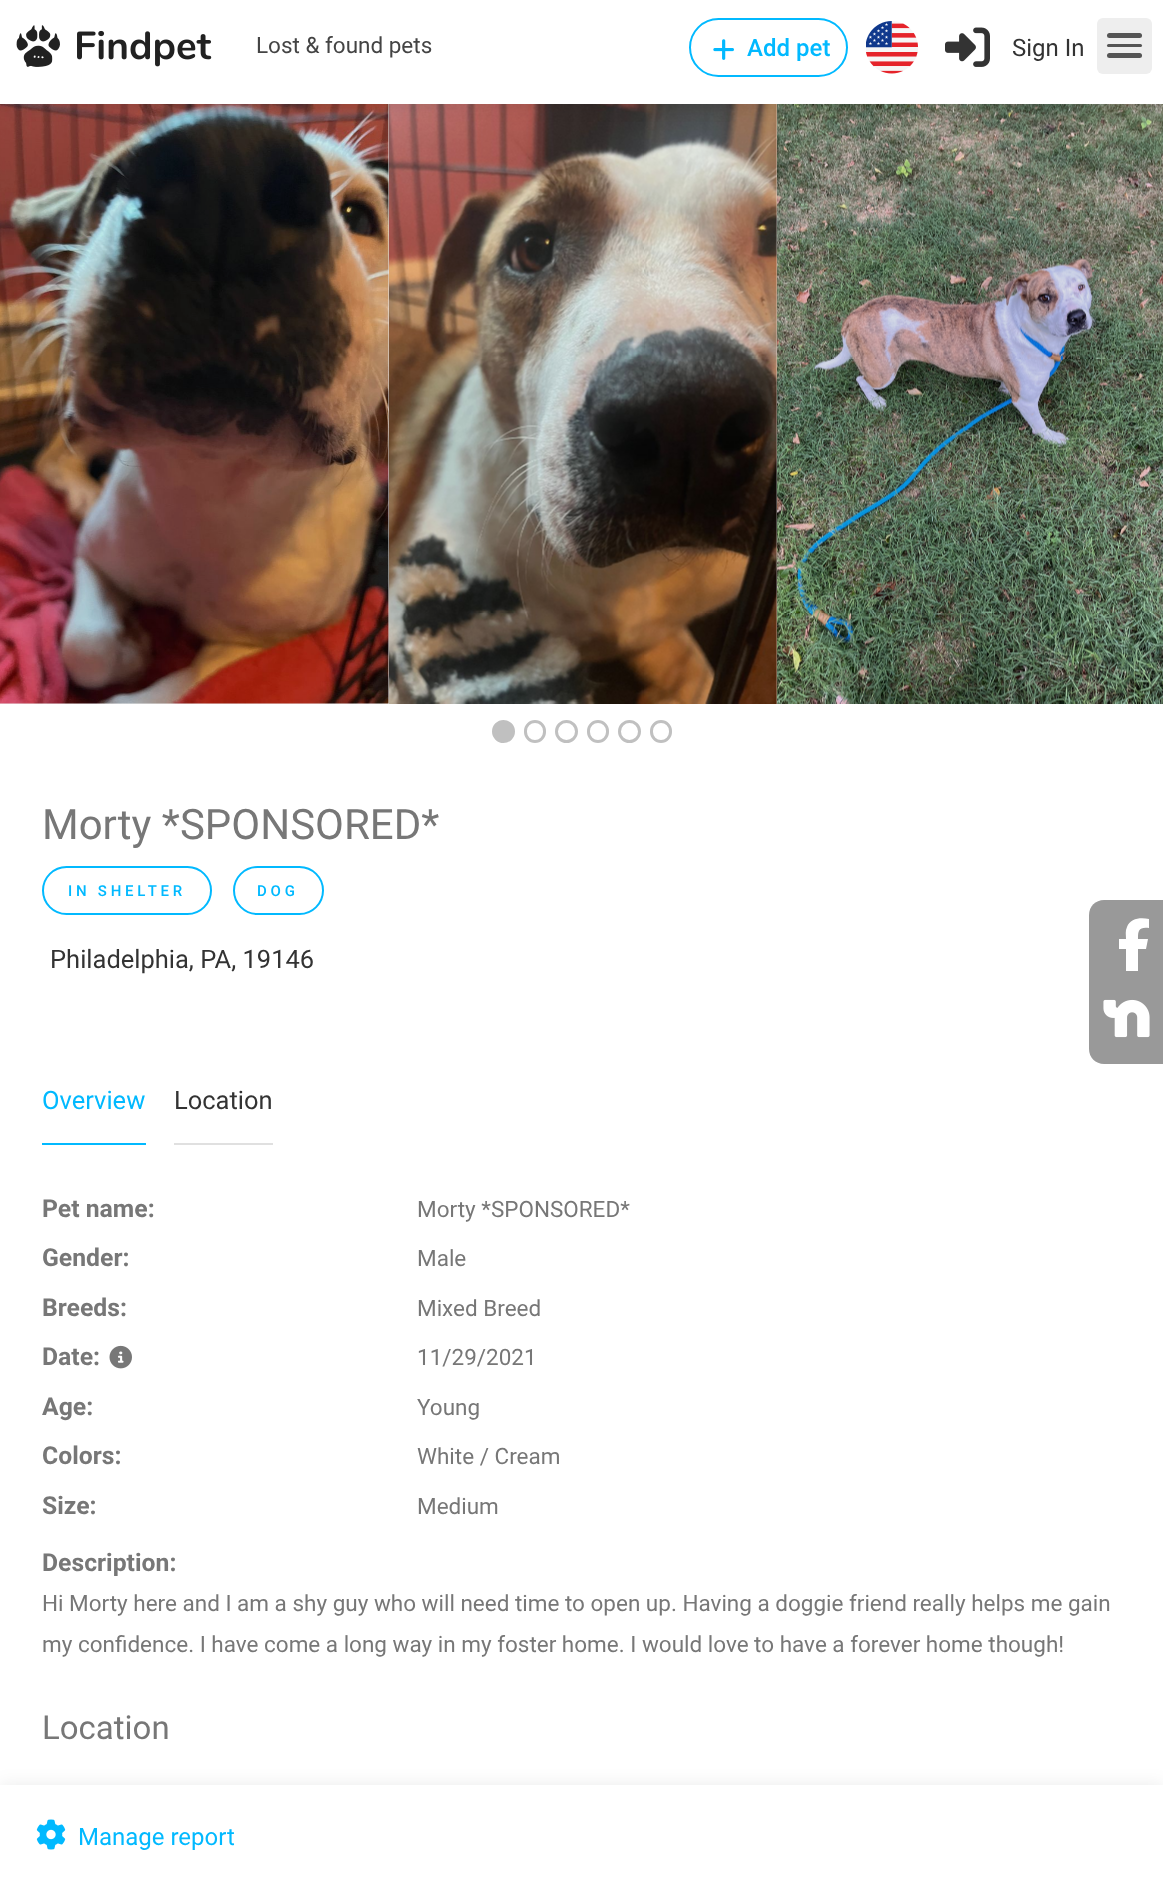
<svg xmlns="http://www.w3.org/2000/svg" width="1163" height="1882">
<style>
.a{font:22.5px Roboto;fill:#444}
.b{font:500 24px Roboto;fill:#01b9ff}
.c{font:24px Roboto;fill:#333}
.d{font:42px Roboto;fill:#777}
.e{font:500 15px Roboto;letter-spacing:3.75px;fill:#01b9ff}
.f{font:25.5px Roboto;fill:#333}
.g{font:25.5px Roboto;fill:#01b9ff}
.h{font:bold 24.75px Roboto;fill:#777}
.i{font:22.5px Roboto;fill:#777}
.j{font:33px Roboto;fill:#777}
.k{font:24px Roboto;fill:#01b9ff}
</style>
<defs>
<clipPath id="clip1"><path d="M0 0h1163v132h-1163zm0 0h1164v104h-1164z" clip-rule="evenodd"/></clipPath>
</defs>
<rect width="100%" height="100%" fill="#fff"/>
<path fill="#e9e9e9" d="M0 104h389v600H0z"/>
<image href="5.png" x="0" y="104" width="389" height="600"/>
<image href="6.png" x="389" y="104" width="388" height="600"/>
<image href="7.png" x="777" y="104" width="386" height="600"/>
<g clip-path="url(#clip1)">
<path fill="#0000001f" filter="blur(9px)" d="M0 0h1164v104H0z"/>
</g>
<image href="1.png" x="16" y="25" width="196" height="42"/>
<rect fill="none" stroke="#01b9ff" stroke-width="2" x="690" y="19" width="157" height="57" rx="28.5"/>
<image href="2.png" x="713" y="39" width="21" height="21"/>
<image href="3.png" x="866" y="21" width="52" height="53"/>
<image href="4.png" x="945" y="27" width="45" height="40"/>
<rect fill="#eee" x="1097" y="18" width="55" height="56" rx="6"/>
<rect fill="#555" x="1107" y="53" width="35" height="5" rx="2.5"/>
<rect fill="#555" x="1107" y="33" width="35" height="5" rx="2.5"/>
<rect fill="#555" x="1107" y="44" width="35" height="3" rx="1.5"/>
<circle fill="none" stroke="#c0c0c0" stroke-width="9" cx="503.5" cy="731.5" r="7"/>
<circle fill="#c0c0c0" cx="503.5" cy="731.5" r="9.5"/>
<rect fill="none" stroke="#c0c0c0" stroke-width="3" x="525.5" y="721.5" width="19" height="20" rx="9.5"/>
<circle fill="none" stroke="#c0c0c0" stroke-width="3" cx="566.5" cy="731.5" r="10"/>
<rect fill="none" stroke="#c0c0c0" stroke-width="3" x="588.5" y="721.5" width="19" height="20" rx="9.5"/>
<circle fill="none" stroke="#c0c0c0" stroke-width="3" cx="629.5" cy="731.5" r="10"/>
<rect fill="none" stroke="#c0c0c0" stroke-width="3" x="651.5" y="721.5" width="19" height="20" rx="9.5"/>
<rect fill="none" stroke="#01b9ff" stroke-width="2" x="43" y="867" width="168" height="47" rx="23.5"/>
<rect fill="none" stroke="#01b9ff" stroke-width="2" x="234" y="867" width="89" height="47" rx="23.5"/>
<path fill="#01b9ff" d="M42 1143h104v2H42z"/>
<path fill="#e0e0e0" d="M174 1143h99v2H174z"/>
<image href="8.png" x="109" y="1345" width="23" height="24"/>
<path fill="#00000014" filter="blur(9px)" d="M0 1785h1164v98H0z"/>
<path fill="#fff" d="M0 1785h1163v97H0z"/>
<image href="9.png" x="36" y="1819" width="30" height="31"/>
<path fill="#999" d="M1104 900h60v164h-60c-8.5 0-15-6.5-15-15v-134c0-8.5 6.5-15 15-15z"/>
<path fill="#fff" d="M1126 949v22h12v-22h8l2-10h-10c0-9 1-12 11-11v-9c-8-2-19-1-22 8c-2 4-1 8-1 12h-7v10z"/>
<image href="10.png" x="1103" y="999" width="47" height="39"/>
<text class="a" x="256" y="53">Lost &amp; found pets</text>
<text class="b" x="747" y="56">Add pet</text>
<text class="c" x="1012" y="56">Sign In</text>
<text class="d" x="42" y="839">Morty *SPONSORED*</text>
<text class="e" x="68" y="896">IN SHELTER</text>
<text class="e" x="257" y="896">DOG</text>
<text class="f" x="50" y="968">Philadelphia, PA, 19146</text>
<text class="g" x="42" y="1109">Overview</text>
<text class="f" x="174" y="1109">Location</text>
<text class="h" x="42" y="1217">Pet name:</text>
<text class="i" x="417" y="1217">Morty *SPONSORED*</text>
<text class="h" x="42" y="1266">Gender:</text>
<text class="i" x="417" y="1266">Male</text>
<text class="h" x="42" y="1316">Breeds:</text>
<text class="i" x="417" y="1316">Mixed Breed</text>
<text class="h" x="42" y="1365">Date:</text>
<text class="i" x="417" y="1365">11/29/2021</text>
<text class="h" x="42" y="1415">Age:</text>
<text class="i" x="417" y="1415">Young</text>
<text class="h" x="42" y="1464">Colors:</text>
<text class="i" x="417" y="1464">White / Cream</text>
<text class="h" x="42" y="1514">Size:</text>
<text class="i" x="417" y="1514">Medium</text>
<text class="h" x="42" y="1571">Description:</text>
<text class="i" x="42" y="1611">Hi Morty here and I am a shy guy who will need time to open up. Having a doggie friend really helps me gain</text>
<text class="i" x="42" y="1652">my confidence. I have come a long way in my foster home. I would love to have a forever home though!</text>
<text class="j" x="42" y="1739">Location</text>
<text class="k" x="78" y="1845">Manage report</text>
</svg>
